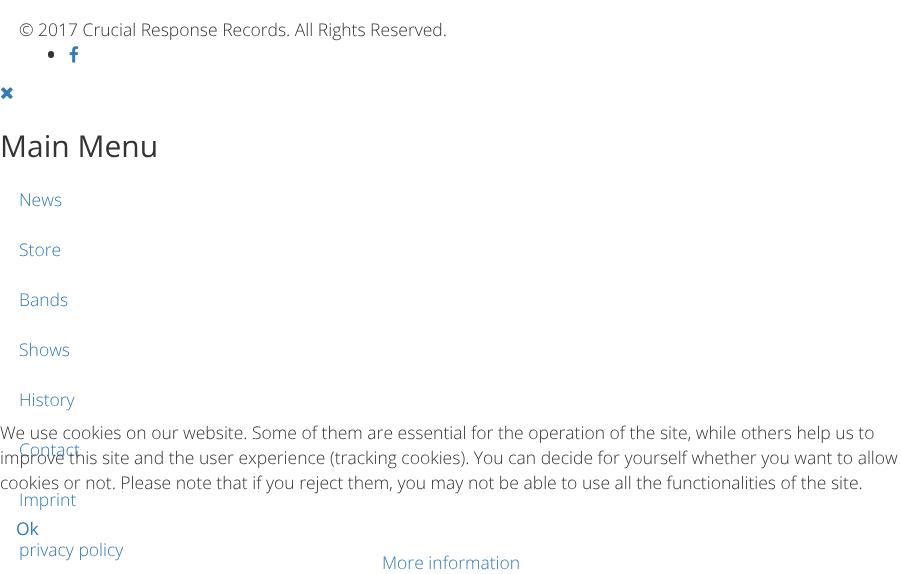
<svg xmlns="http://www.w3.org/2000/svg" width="901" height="574">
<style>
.a{font:300 17.5px Open Sans;fill:#333}
.b{font:30px Open Sans;fill:#333}
.c{font:300 17.5px Open Sans;fill:#337ab7}
.d{font:17.5px Open Sans;fill:#337ab7}
</style>
<rect width="100%" height="100%" fill="#fff"/>
<rect fill="#333" x="48" y="51" width="6" height="7" rx="3"/>
<image href="1.png" x="69" y="46" width="10" height="17"/>
<image href="2.png" x="1" y="87" width="12" height="12"/>
<text class="a" x="19" y="36">© 2017 Crucial Response Records. All Rights Reserved.</text>
<text class="b" x="0" y="157">Main Menu</text>
<text class="c" x="19" y="206">News</text>
<text class="c" x="19" y="256">Store</text>
<text class="c" x="19" y="306">Bands</text>
<text class="c" x="19" y="356">Shows</text>
<text class="c" x="19" y="406">History</text>
<text class="c" x="19" y="456">Contact</text>
<text class="c" x="19" y="506">Imprint</text>
<text class="c" x="19" y="556">privacy policy</text>
<text class="a" x="0" y="439">We use cookies on our website. Some of them are essential for the operation of the site, while others help us to</text>
<text class="a" x="0" y="464">improve this site and the user experience (tracking cookies). You can decide for yourself whether you want to allow</text>
<text class="a" x="0" y="489">cookies or not. Please note that if you reject them, you may not be able to use all the functionalities of the site.</text>
<text class="d" x="16" y="535">Ok</text>
<text class="c" x="382" y="569">More information</text>
</svg>
